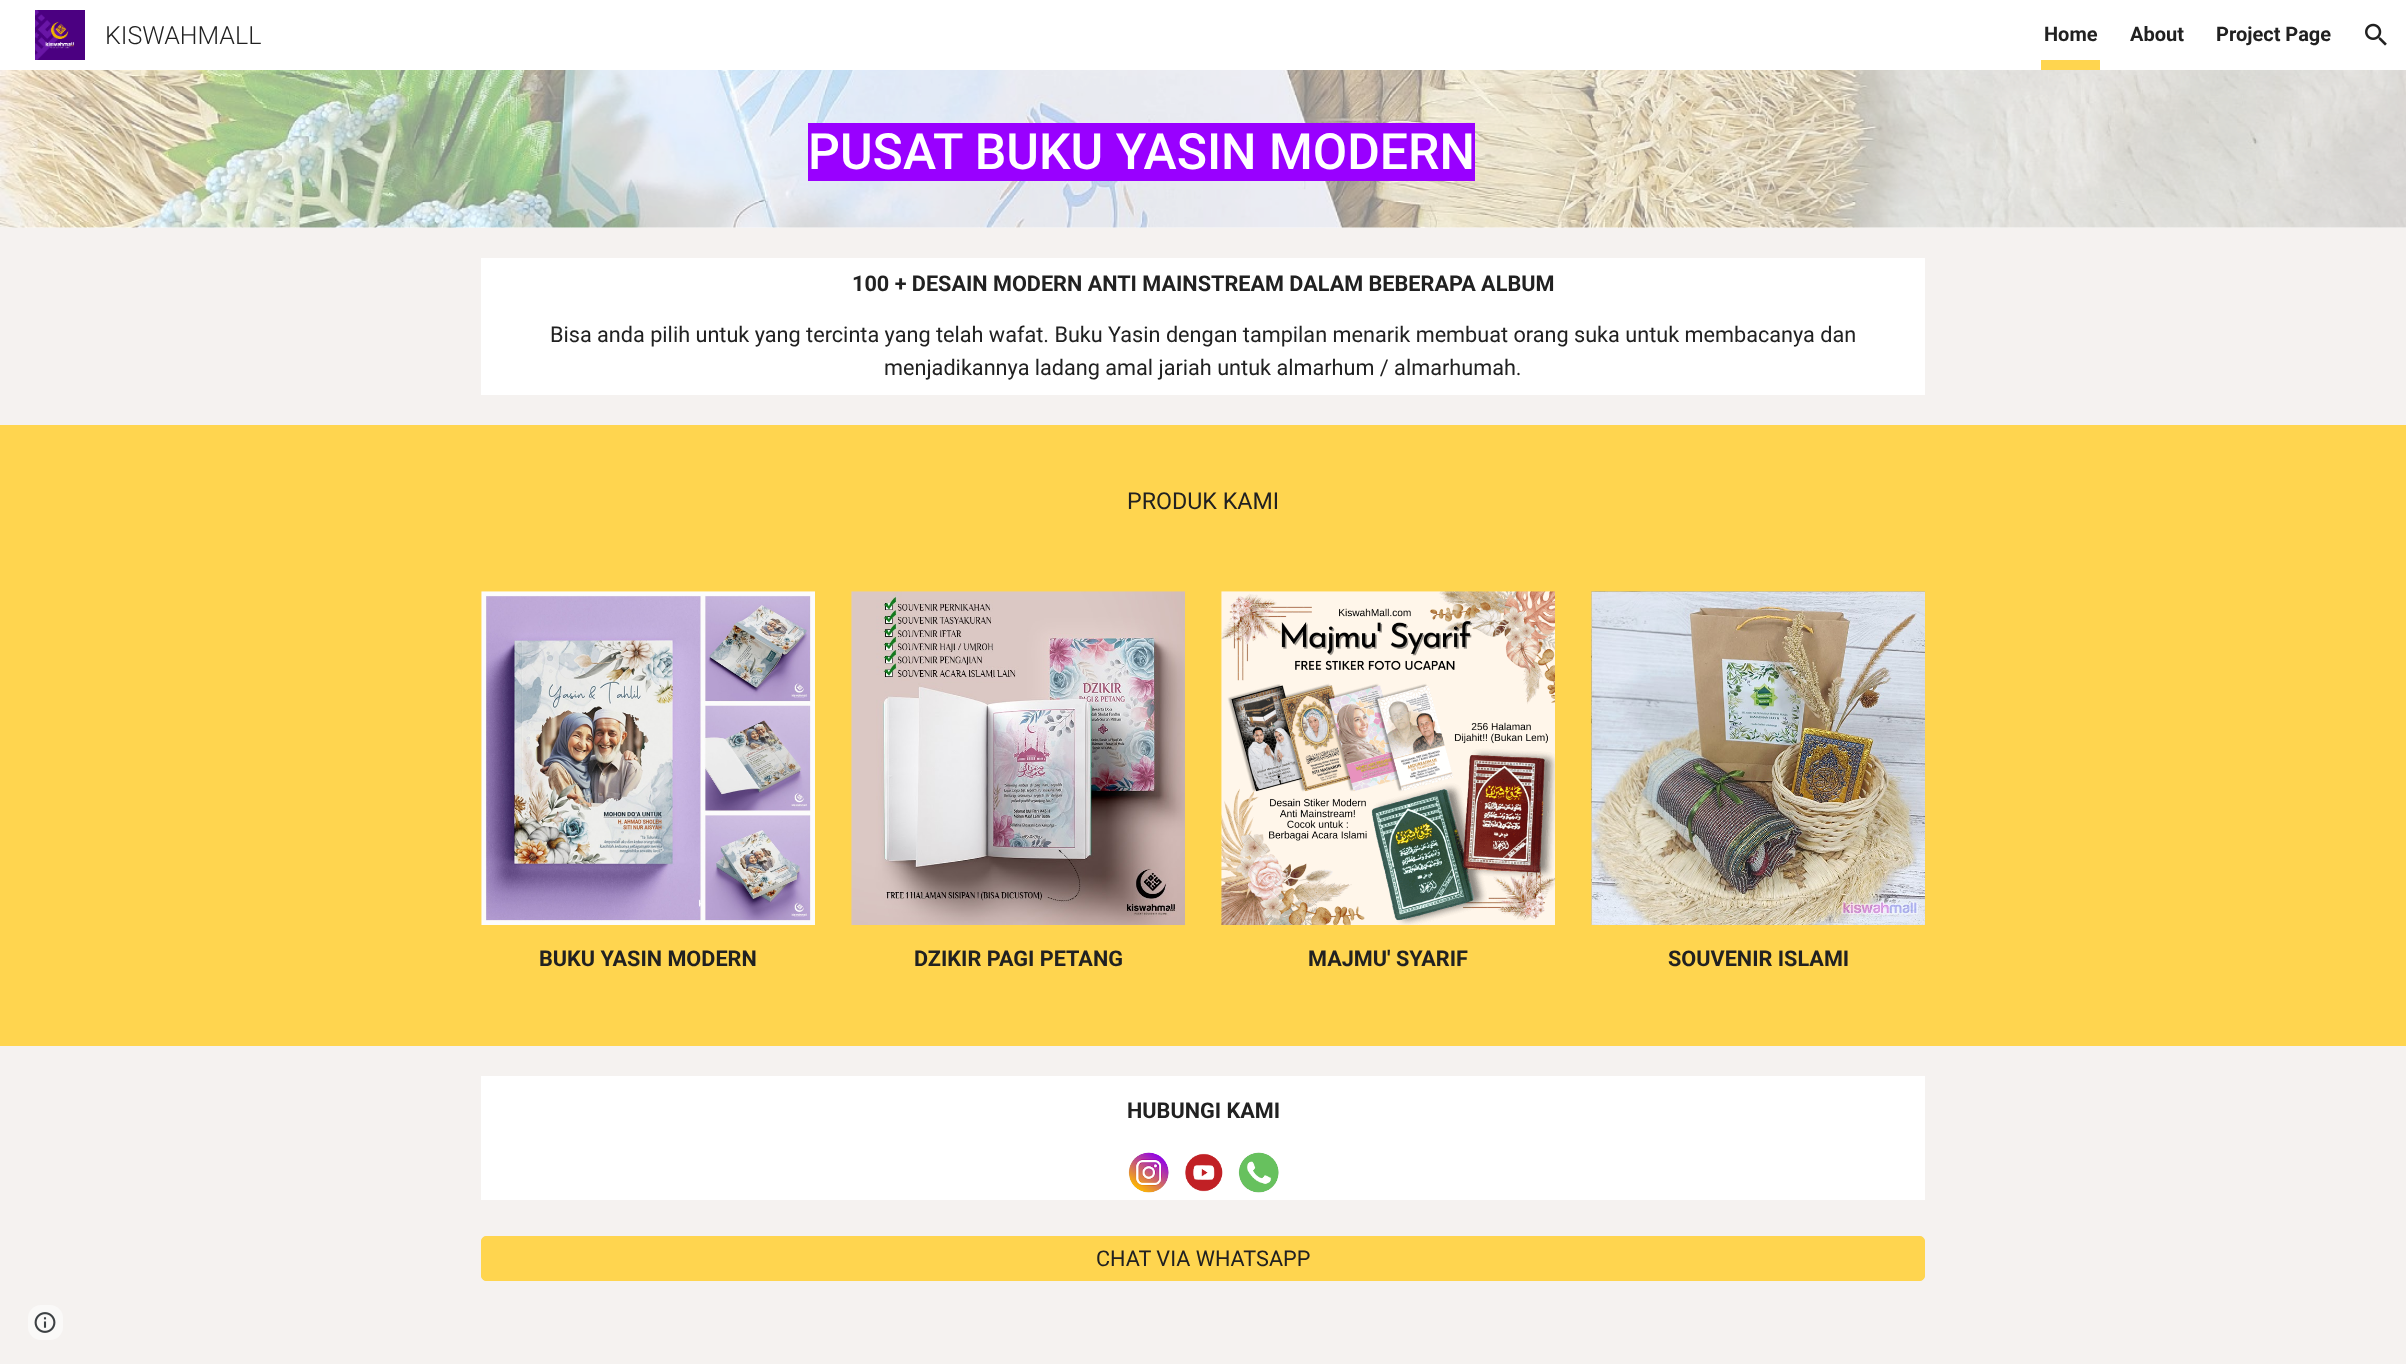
<svg xmlns="http://www.w3.org/2000/svg" width="2406" height="1364">
<style>
.a{font:300 25px Roboto;fill:#212121}
.b{font:bold 20px Roboto;fill:#212121}
.c{font:500 50px Roboto;fill:#fff}
.d{font:bold 21.67px Roboto;fill:#212121}
.e{font:21.67px Roboto;fill:#212121}
.f{font:23.25px Roboto;fill:#212121}
</style>
<rect width="100%" height="100%" fill="#f5f2f0"/>
<path fill="#fff" d="M0 0h2406v70H0z"/>
<image href="1.png" x="35" y="10" width="50" height="50"/>
<path fill="#ffd54f" d="M2041 60h59v10H2041z"/>
<image href="2.png" x="2365" y="23" width="22" height="23"/>
<path fill="#faf9f8" d="M0 227h2406v1H0z"/>
<image href="3.png" x="0" y="70" width="2406" height="158"/>
<path fill="#90f" d="M808 123h667v58H808z"/>
<path fill="#fff" d="M481 258h1444v137H481z"/>
<path fill="#ffd54f" d="M0 425h2406v621H0z"/>
<image href="4.png" x="481" y="591" width="334" height="334"/>
<image href="5.png" x="851" y="591" width="334" height="334"/>
<image href="6.png" x="1221" y="591" width="334" height="334"/>
<image href="7.png" x="1591" y="591" width="334" height="334"/>
<path fill="#fff" d="M481 1076h1444v124H481z"/>
<image href="8.png" x="1128" y="1152" width="41" height="41"/>
<image href="9.png" x="1185" y="1153" width="38" height="39"/>
<image href="10.png" x="1238" y="1152" width="41" height="41"/>
<rect fill="#ffd54f" stroke="#ffd54f" x="481.5" y="1236.5" width="1443" height="44" rx="4.5"/>
<rect fill="#faf9f8" x="28" y="1305" width="35" height="35" rx="13"/>
<image href="11.png" x="34" y="1312" width="22" height="21"/>
<text class="a" x="105" y="44">KISWAHMALL</text>
<text class="b" x="2044" y="41">Home</text>
<text class="b" x="2130" y="41">About</text>
<text class="b" x="2216" y="41">Project Page</text>
<text class="c" x="808" y="169">PUSAT BUKU YASIN MODERN</text>
<text class="d" x="852" y="291">100 + DESAIN MODERN ANTI MAINSTREAM DALAM BEBERAPA ALBUM</text>
<text class="e" x="550" y="342">Bisa anda pilih untuk yang tercinta yang telah wafat. Buku Yasin dengan tampilan menarik membuat orang suka untuk membacanya dan</text>
<text class="e" x="884" y="375">menjadikannya ladang amal jariah untuk almarhum / almarhumah.</text>
<text class="f" x="1127" y="509">PRODUK KAMI</text>
<text class="d" x="539" y="966">BUKU YASIN MODERN</text>
<text class="d" x="914" y="966">DZIKIR PAGI PETANG</text>
<text class="d" x="1308" y="966">MAJMU' SYARIF</text>
<text class="d" x="1668" y="966">SOUVENIR ISLAMI</text>
<text class="d" x="1127" y="1118">HUBUNGI KAMI</text>
<text class="e" x="1096" y="1266">CHAT VIA WHATSAPP</text>
</svg>
